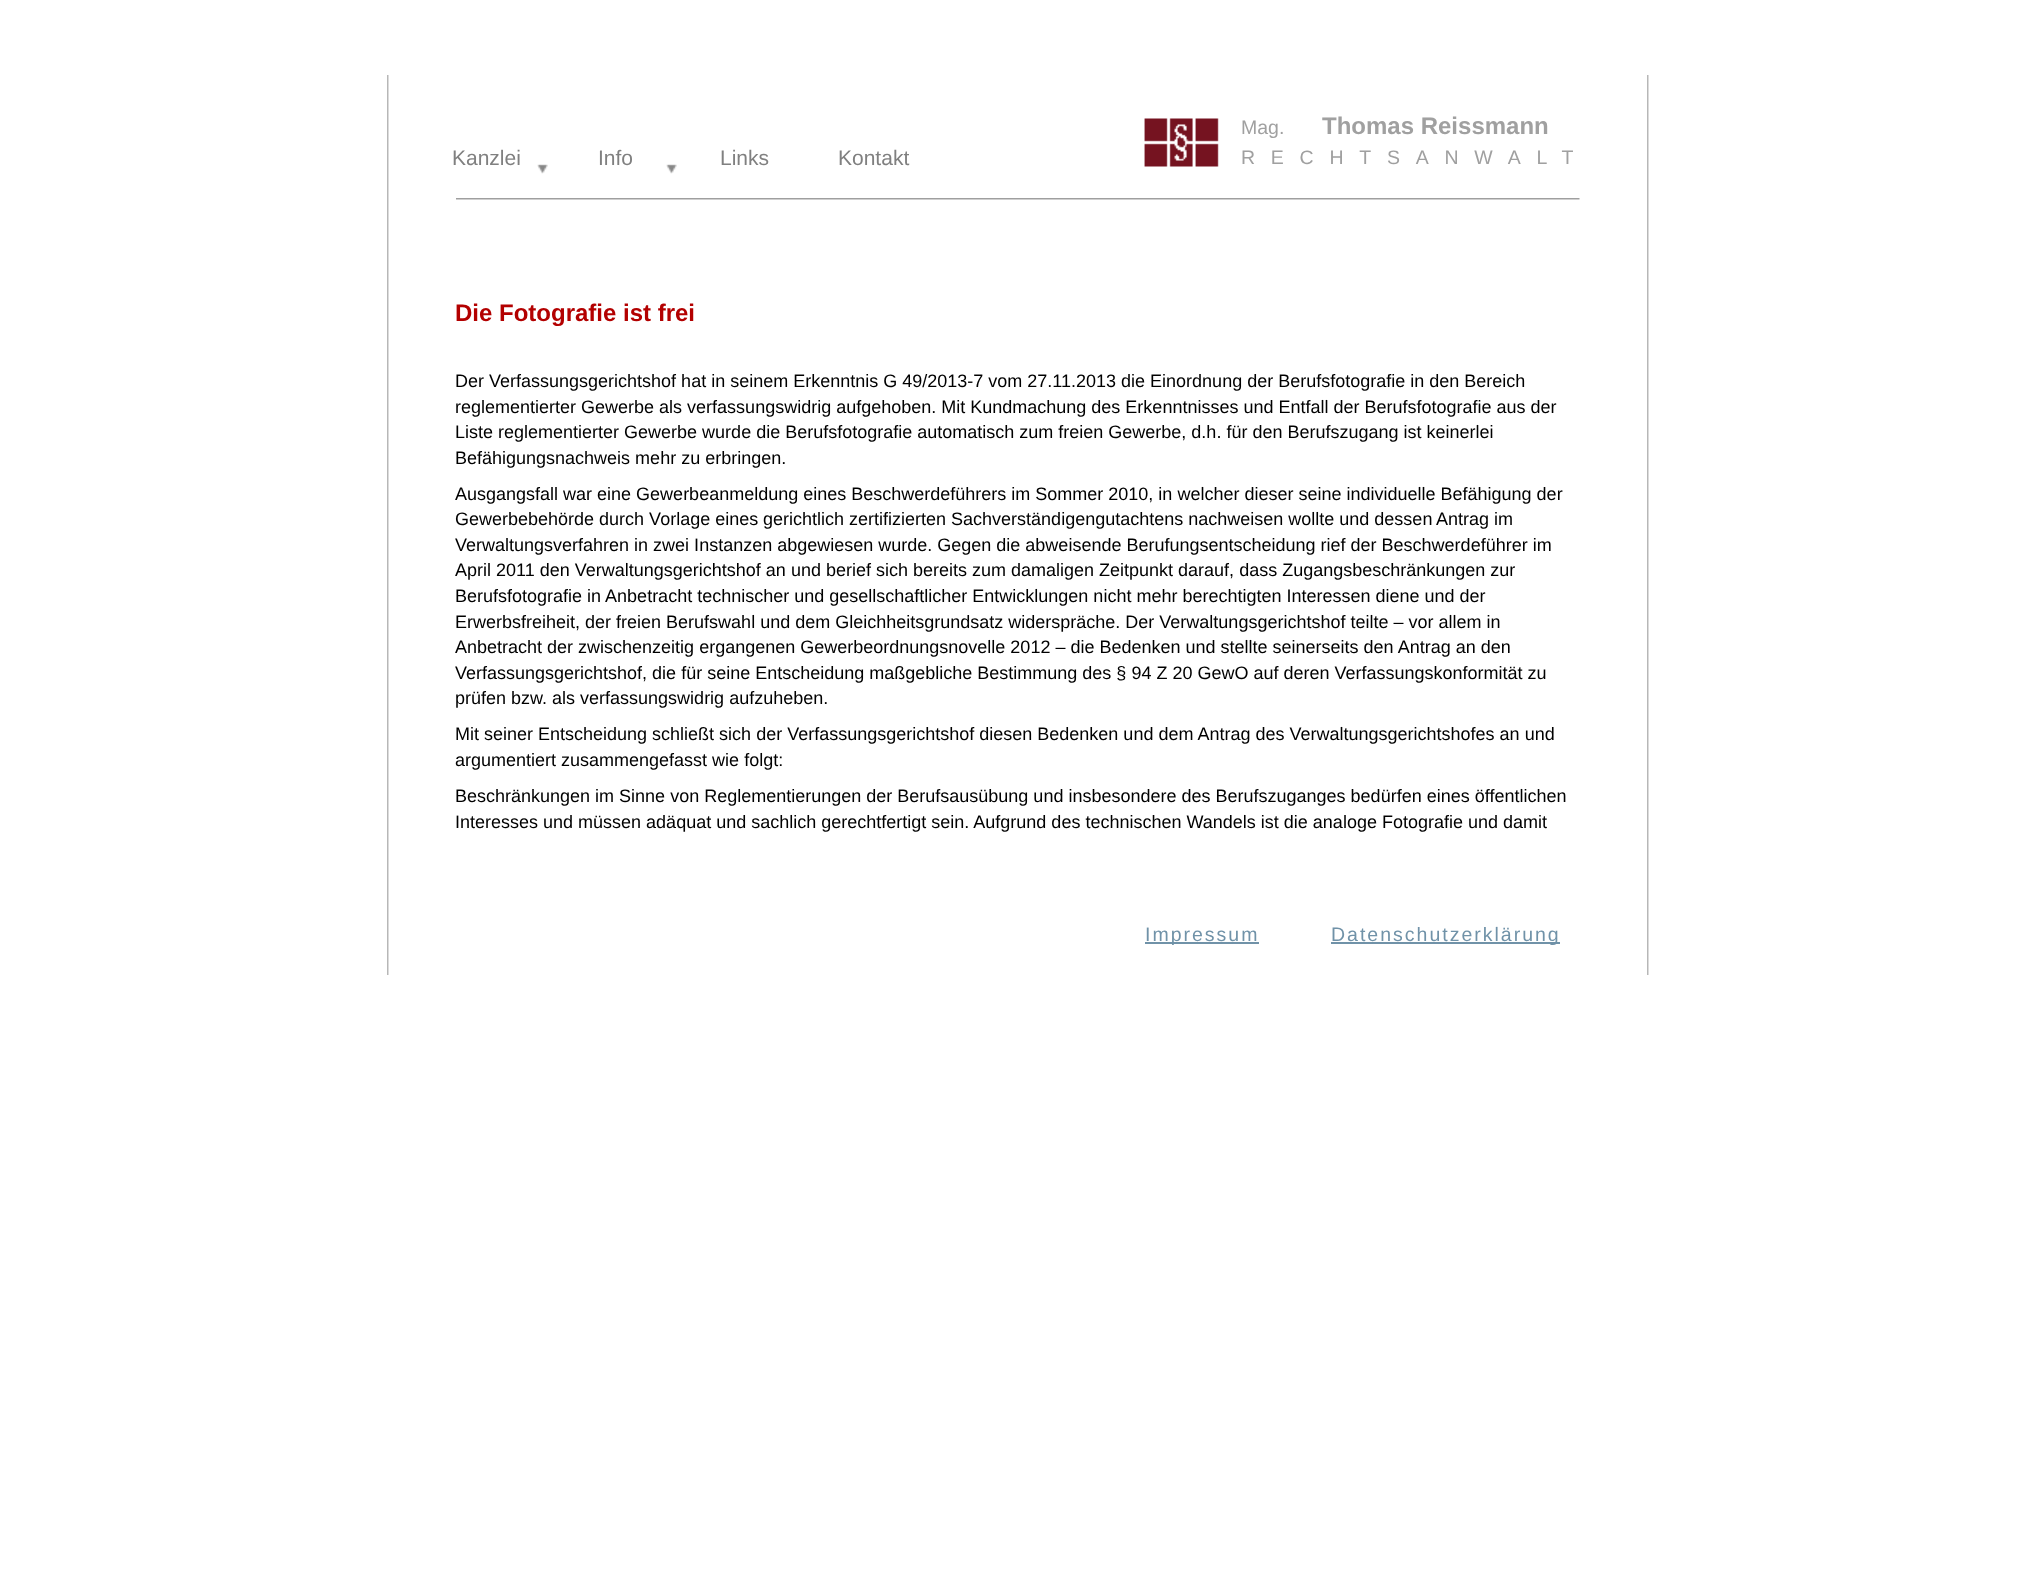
<svg xmlns="http://www.w3.org/2000/svg" width="2034" height="1576">
<style>
.a{font:19.5px Liberation Sans;fill:#a0a0a0}
.b{font:bold 24px Liberation Sans;fill:#a0a0a0}
.c{font:21px Liberation Sans;fill:#808080}
.d{font:19.5px Liberation Sans;letter-spacing:15.75px;fill:#a0a0a0}
.e{font:bold 24px Liberation Sans;fill:#b30000}
.f{font:18px Liberation Sans;fill:#000}
.g{font:19.5px Liberation Sans;letter-spacing:2px;fill:#7092a8}
</style>
<defs>
<clipPath id="clip1"><path d="M1322 113h270v40H1322z"/></clipPath>
</defs>
<rect width="100%" height="100%" fill="#fff"/>
<image href="1.png" x="387" y="75" width="2" height="900"/>
<image href="2.png" x="1144" y="118" width="75" height="49"/>
<image href="1.png" x="1647" y="75" width="2" height="900"/>
<image href="3.png" x="537" y="164" width="11" height="10"/>
<image href="3.png" x="666" y="164" width="11" height="10"/>
<image href="4.png" x="456" y="198" width="1124" height="2"/>
<path fill="#7092a8" d="M1145 942h114v2H1145z"/>
<path fill="#7092a8" d="M1331 942h229v2H1331z"/>
<text class="a" x="1241" y="134">Mag.</text>
<g clip-path="url(#clip1)">
<text class="b" x="1322" y="134">Thomas Reissmann</text>
</g>
<text class="c" x="452" y="165">Kanzlei</text>
<text class="c" x="598" y="165">Info</text>
<text class="c" x="720" y="165">Links</text>
<text class="c" x="838" y="165">Kontakt</text>
<text class="d" x="1241" y="164">RECHTSANWALT</text>
<text class="e" x="455" y="321">Die Fotografie ist frei</text>
<text class="f" x="455" y="387">Der Verfassungsgerichtshof hat in seinem Erkenntnis G 49/2013-7 vom 27.11.2013 die Einordnung der Berufsfotografie in den Bereich</text>
<text class="f" x="455" y="413">reglementierter Gewerbe als verfassungswidrig aufgehoben. Mit Kundmachung des Erkenntnisses und Entfall der Berufsfotografie aus der</text>
<text class="f" x="455" y="438">Liste reglementierter Gewerbe wurde die Berufsfotografie automatisch zum freien Gewerbe, d.h. für den Berufszugang ist keinerlei</text>
<text class="f" x="455" y="464">Befähigungsnachweis mehr zu erbringen.</text>
<text class="f" x="455" y="500">Ausgangsfall war eine Gewerbeanmeldung eines Beschwerdeführers im Sommer 2010, in welcher dieser seine individuelle Befähigung der</text>
<text class="f" x="455" y="525">Gewerbebehörde durch Vorlage eines</text>
<text class="f" x="763" y="525">gerichtlich zertifizierten Sachverständigengutachtens nachweisen wollte und dessen</text>
<text class="f" x="1436" y="525">Antrag im</text>
<text class="f" x="455" y="551">Verwaltungsverfahren in zwei Instanzen abgewiesen wurde. Gegen die abweisende Berufungsentscheidung rief der Beschwerdeführer im</text>
<text class="f" x="455" y="576">April 2011 den Verwaltungsgerichtshof an und berief sich bereits zum damaligen Zeitpunkt darauf, dass Zugangsbeschränkungen zur</text>
<text class="f" x="455" y="602">Berufsfotografie in Anbetracht technischer und gesellschaftlicher Entwicklungen nicht mehr berechtigten Interessen diene und der</text>
<text class="f" x="455" y="628">Erwerbsfreiheit, der freien Berufswahl und dem Gleichheitsgrundsatz widerspräche. Der Verwaltungsgerichtshof teilte – vor allem in</text>
<text class="f" x="455" y="653">Anbetracht der zwischenzeitig ergangenen Gewerbeordnungsnovelle 2012 – die Bedenken und stellte seinerseits den Antrag an den</text>
<text class="f" x="455" y="679">Verfassungsgerichtshof, die für seine Entscheidung maßgebliche Bestimmung des § 94 Z 20 GewO auf deren Verfassungskonformität zu</text>
<text class="f" x="455" y="704">prüfen bzw. als verfassungswidrig aufzuheben.</text>
<text class="f" x="455" y="740">Mit seiner Entscheidung schließt sich der Verfassungsgerichtshof diesen Bedenken und dem Antrag des Verwaltungsgerichtshofes an und</text>
<text class="f" x="455" y="766">argumentiert zusammengefasst wie folgt:</text>
<text class="f" x="455" y="802">Beschränkungen im Sinne von Reglementierungen der Berufsausübung und insbesondere des Berufszuganges bedürfen eines öffentlichen</text>
<text class="f" x="455" y="828">Interesses und müssen adäquat und sachlich gerechtfertigt sein. Aufgrund des technischen Wandels ist die analoge Fotografie und damit</text>
<text class="g" x="1145" y="941">Impressum</text>
<text class="g" x="1331" y="941">Datenschutzerklärung</text>
</svg>
